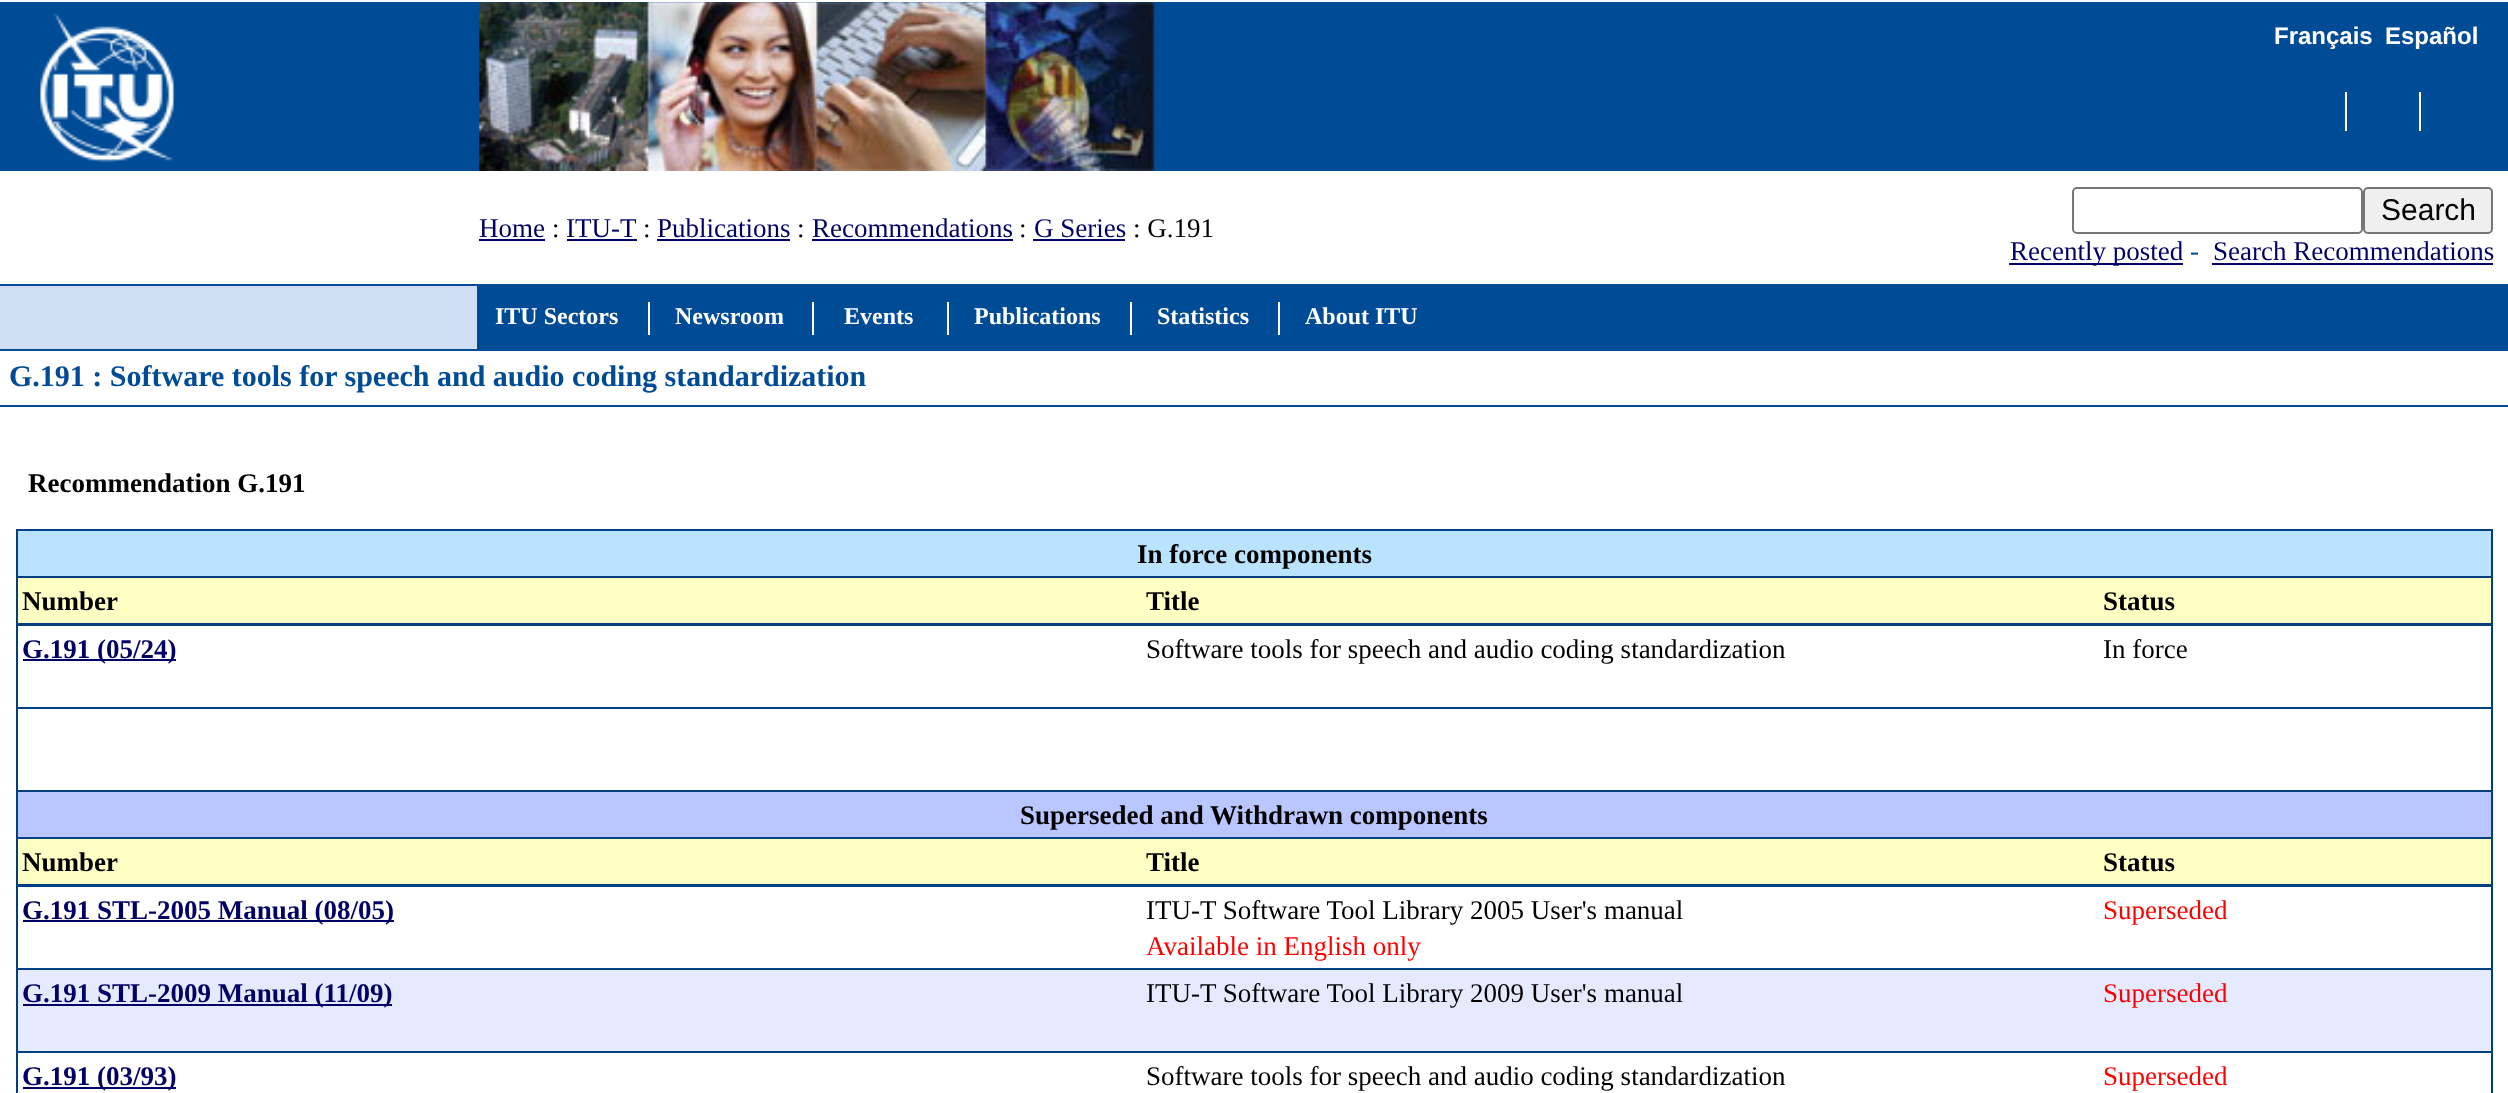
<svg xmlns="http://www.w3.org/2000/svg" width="2508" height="1093">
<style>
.a{font:bold 24px Liberation Sans;fill:#fff}
.b{font:27px Liberation Serif;fill:#006}
.c{font:27px Liberation Serif;fill:#000}
.d{font:30px Liberation Sans;fill:#000}
.e{font:27px Liberation Serif;fill:#004b96}
.f{font:bold 30px Liberation Serif;fill:#004b96}
.g{font:bold 27px Liberation Serif;fill:#000}
.h{font:bold 27px Liberation Serif;fill:#006}
.i{font:27px Liberation Serif;fill:#f00}
.j{font:bold 24px Liberation Serif;fill:#fff}
</style>
<rect width="100%" height="100%" fill="#fff"/>
<path fill="#004b96" d="M0 2h2508v169H0z"/>
<image href="1.png" x="40" y="13" width="136" height="150"/>
<image href="2.png" x="479" y="2" width="676" height="169"/>
<path fill="#fff" d="M2345 92h2v39H2345z"/>
<path fill="#fff" d="M2419 92h2v39H2419z"/>
<path fill="#006" d="M479 239h66v2H479z"/>
<path fill="#006" d="M567 239h70v2H567z"/>
<path fill="#006" d="M657 239h133v2H657z"/>
<path fill="#006" d="M812 239h201v2H812z"/>
<path fill="#006" d="M1033 239h92v2H1033z"/>
<rect fill="none" stroke="#767676" stroke-width="2" x="2073" y="188" width="289" height="45" rx="4"/>
<rect fill="#efefef" stroke="#767676" stroke-width="2" x="2364" y="188" width="128" height="45" rx="4"/>
<path fill="#006" d="M2009 263h174v2H2009z"/>
<path fill="#006" d="M2212 263h281v2H2212z"/>
<path fill="#cfdef3" d="M0 286h477v63H0z"/>
<path fill="#004b96" d="M0 284h479v2H0z"/>
<path fill="#004b96" d="M477 284h2031v67H477z"/>
<path fill="#004b96" d="M0 349h479v2H0z"/>
<path fill="#004b96" d="M0 405h2508v2H0z"/>
<path fill="#004080" d="M16 529h2477v564H16z"/>
<path fill="#b9e3ff" d="M18 531h2473v45H18z"/>
<path fill="#ffffc4" d="M18 578h2473v45H18z"/>
<path fill="#fff" d="M18 626h2473v81H18z"/>
<path fill="#006" d="M23 659h153v2H23z"/>
<path fill="#fff" d="M18 709h2473v81H18z"/>
<path fill="#b9c6ff" d="M18 792h2473v45H18z"/>
<path fill="#ffffc4" d="M18 839h2473v45H18z"/>
<path fill="#fff" d="M18 887h2473v81H18z"/>
<path fill="#006" d="M23 920h371v2H23z"/>
<path fill="#e6eaff" d="M18 970h2473v81H18z"/>
<path fill="#006" d="M23 1004h369v2H23z"/>
<path fill="#fff" d="M18 1053h2473v40H18z"/>
<path fill="#006" d="M23 1087h153v2H23z"/>
<path fill="#fff" d="M648 302h2v33H648z"/>
<path fill="#fff" d="M812 302h2v33H812z"/>
<path fill="#fff" d="M947 302h2v33H947z"/>
<path fill="#fff" d="M1130 302h2v33H1130z"/>
<path fill="#fff" d="M1278 302h2v33H1278z"/>
<text class="a" x="2274" y="44">Français</text>
<text class="a" x="2385" y="44">Español</text>
<text class="b" x="479" y="237">Home</text>
<text class="c" x="552" y="237">:</text>
<text class="b" x="566" y="237">ITU-T</text>
<text class="c" x="643" y="237">:</text>
<text class="b" x="657" y="237">Publications</text>
<text class="c" x="797" y="237">:</text>
<text class="b" x="812" y="237">Recommendations</text>
<text class="c" x="1019" y="237">:</text>
<text class="b" x="1034" y="237">G Series</text>
<text class="c" x="1133" y="237">: G.191</text>
<text class="d" x="2381" y="220">Search</text>
<text class="b" x="2010" y="260">Recently posted</text>
<text class="e" x="2190" y="260">-</text>
<text class="b" x="2213" y="260">Search Recommendations</text>
<text class="f" x="9" y="386">G.191 : Software tools for speech and audio coding standardization</text>
<text class="g" x="28" y="492">Recommendation G.191</text>
<text class="g" x="1137" y="563">In force components</text>
<text class="g" x="22" y="610">Number</text>
<text class="g" x="1146" y="610">Title</text>
<text class="g" x="2103" y="610">Status</text>
<text class="h" x="22" y="658">G.191 (05/24)</text>
<text class="c" x="1146" y="658">Software tools for speech and audio coding standardization</text>
<text class="c" x="2103" y="658">In force</text>
<text class="g" x="1020" y="824">Superseded and Withdrawn components</text>
<text class="g" x="22" y="871">Number</text>
<text class="g" x="1146" y="871">Title</text>
<text class="g" x="2103" y="871">Status</text>
<text class="h" x="22" y="919">G.191 STL-2005 Manual (08/05)</text>
<text class="c" x="1146" y="919">ITU-T Software Tool Library 2005 User's manual</text>
<text class="i" x="1146" y="955">Available in English only</text>
<text class="i" x="2103" y="919">Superseded</text>
<text class="h" x="22" y="1002">G.191 STL-2009 Manual (11/09)</text>
<text class="c" x="1146" y="1002">ITU-T Software Tool Library 2009 User's manual</text>
<text class="i" x="2103" y="1002">Superseded</text>
<text class="h" x="22" y="1085">G.191 (03/93)</text>
<text class="c" x="1146" y="1085">Software tools for speech and audio coding standardization</text>
<text class="i" x="2103" y="1085">Superseded</text>
<text class="j" x="495" y="324">ITU Sectors</text>
<text class="j" x="675" y="324">Newsroom</text>
<text class="j" x="844" y="324">Events</text>
<text class="j" x="974" y="324">Publications</text>
<text class="j" x="1157" y="324">Statistics</text>
<text class="j" x="1305" y="324">About ITU</text>
</svg>
